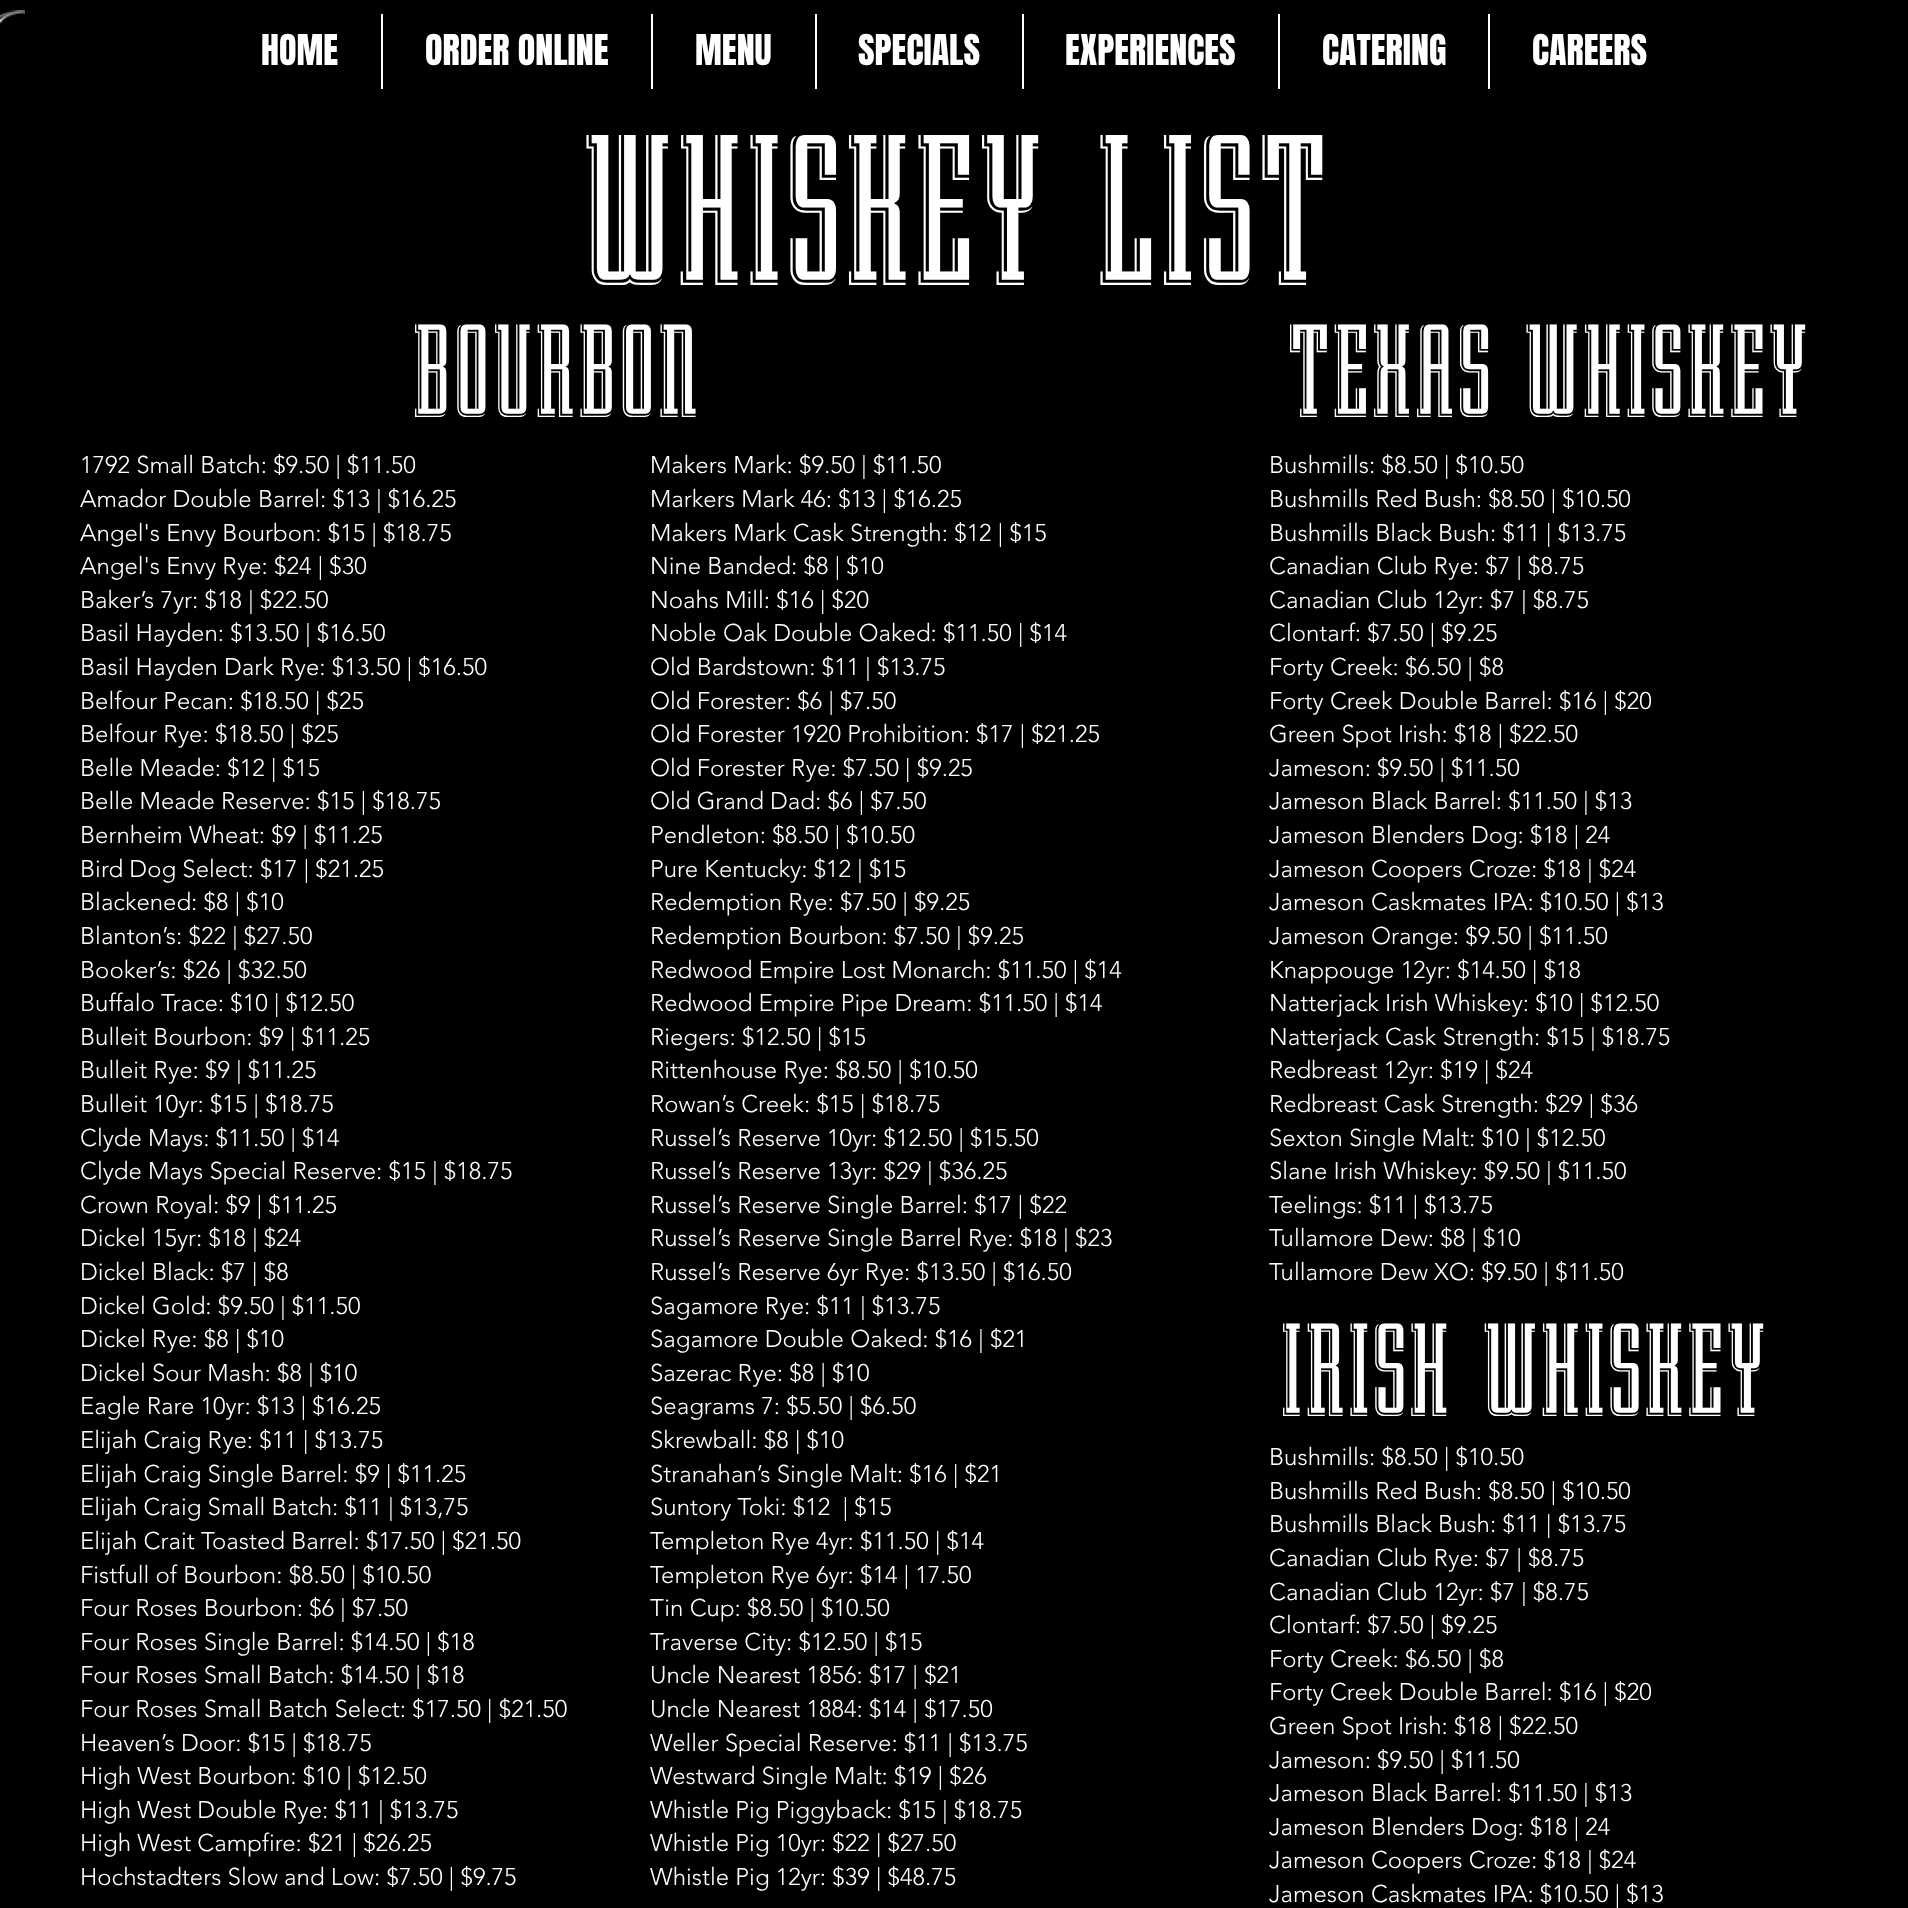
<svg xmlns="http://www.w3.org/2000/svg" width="1908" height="1908">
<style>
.a{font:36px Anton;fill:#fff}
.b{font:180px 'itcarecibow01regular';fill:#fff}
.c{font:111px 'itcarecibow01regular';fill:#fff}
.d{font:300 24px 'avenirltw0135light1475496';fill:#fff}
</style>
<rect width="100%" height="100%" fill="#000"/>
<image href="1.png" x="0" y="10" width="25" height="14"/>
<path fill="#fff" d="M381 14h2v75H381z"/>
<path fill="#fff" d="M651 14h2v75H651z"/>
<path fill="#fff" d="M815 14h2v75H815z"/>
<path fill="#fff" d="M1022 14h2v75H1022z"/>
<path fill="#fff" d="M1278 14h2v75H1278z"/>
<path fill="#fff" d="M1488 14h2v75H1488z"/>
<text class="a" x="261" y="65">HOME</text>
<text class="a" x="425" y="65">ORDER ONLINE</text>
<text class="a" x="695" y="65">MENU</text>
<text class="a" x="858" y="65">SPECIALS</text>
<text class="a" x="1065" y="65">EXPERIENCES</text>
<text class="a" x="1322" y="65">CATERING</text>
<text class="a" x="1532" y="65">CAREERS</text>
<text class="b" x="580" y="285">WHISKEY LIST</text>
<text class="c" x="411" y="417">BOURBON</text>
<text class="c" x="1286" y="417">TEXAS WHISKEY</text>
<text class="d" x="80" y="473">1792 Small Batch: $9.50 | $11.50</text>
<text class="d" x="80" y="507">Amador Double Barrel: $13 | $16.25</text>
<text class="d" x="80" y="541">Angel's Envy Bourbon: $15 | $18.75</text>
<text class="d" x="80" y="574">Angel's Envy Rye: $24 | $30</text>
<text class="d" x="80" y="608">Baker’s 7yr: $18 | $22.50</text>
<text class="d" x="80" y="641">Basil Hayden: $13.50 | $16.50</text>
<text class="d" x="80" y="675">Basil Hayden Dark Rye: $13.50 | $16.50</text>
<text class="d" x="80" y="709">Belfour Pecan: $18.50 | $25</text>
<text class="d" x="80" y="742">Belfour Rye: $18.50 | $25</text>
<text class="d" x="80" y="776">Belle Meade: $12 | $15</text>
<text class="d" x="80" y="809">Belle Meade Reserve: $15 | $18.75</text>
<text class="d" x="80" y="843">Bernheim Wheat: $9 | $11.25</text>
<text class="d" x="80" y="877">Bird Dog Select: $17 | $21.25</text>
<text class="d" x="80" y="910">Blackened: $8 | $10</text>
<text class="d" x="80" y="944">Blanton’s: $22 | $27.50</text>
<text class="d" x="80" y="978">Booker’s: $26 | $32.50</text>
<text class="d" x="80" y="1011">Buffalo Trace: $10 | $12.50</text>
<text class="d" x="80" y="1045">Bulleit Bourbon: $9 | $11.25</text>
<text class="d" x="80" y="1078">Bulleit Rye: $9 | $11.25</text>
<text class="d" x="80" y="1112">Bulleit 10yr: $15 | $18.75</text>
<text class="d" x="80" y="1146">Clyde Mays: $11.50 | $14</text>
<text class="d" x="80" y="1179">Clyde Mays Special Reserve: $15 | $18.75</text>
<text class="d" x="80" y="1213">Crown Royal: $9 | $11.25</text>
<text class="d" x="80" y="1246">Dickel 15yr: $18 | $24</text>
<text class="d" x="80" y="1280">Dickel Black: $7 | $8</text>
<text class="d" x="80" y="1314">Dickel Gold: $9.50 | $11.50</text>
<text class="d" x="80" y="1347">Dickel Rye: $8 | $10</text>
<text class="d" x="80" y="1381">Dickel Sour Mash: $8 | $10</text>
<text class="d" x="80" y="1414">Eagle Rare 10yr: $13 | $16.25</text>
<text class="d" x="80" y="1448">Elijah Craig Rye: $11 | $13.75</text>
<text class="d" x="80" y="1482">Elijah Craig Single Barrel: $9 | $11.25</text>
<text class="d" x="80" y="1515">Elijah Craig Small Batch: $11 | $13,75</text>
<text class="d" x="80" y="1549">Elijah Crait Toasted Barrel: $17.50 | $21.50</text>
<text class="d" x="80" y="1583">Fistfull of Bourbon: $8.50 | $10.50</text>
<text class="d" x="80" y="1616">Four Roses Bourbon: $6 | $7.50</text>
<text class="d" x="80" y="1650">Four Roses Single Barrel: $14.50 | $18</text>
<text class="d" x="80" y="1683">Four Roses Small Batch: $14.50 | $18</text>
<text class="d" x="80" y="1717">Four Roses Small Batch Select: $17.50 | $21.50</text>
<text class="d" x="80" y="1751">Heaven’s Door: $15 | $18.75</text>
<text class="d" x="80" y="1784">High West Bourbon: $10 | $12.50</text>
<text class="d" x="80" y="1818">High West Double Rye: $11 | $13.75</text>
<text class="d" x="80" y="1851">High West Campfire: $21 | $26.25</text>
<text class="d" x="80" y="1885">Hochstadters Slow and Low: $7.50 | $9.75</text>
<text class="d" x="650" y="473">Makers Mark: $9.50 | $11.50</text>
<text class="d" x="650" y="507">Markers Mark 46: $13 | $16.25</text>
<text class="d" x="650" y="541">Makers Mark Cask Strength: $12 | $15</text>
<text class="d" x="650" y="574">Nine Banded: $8 | $10</text>
<text class="d" x="650" y="608">Noahs Mill: $16 | $20</text>
<text class="d" x="650" y="641">Noble Oak Double Oaked: $11.50 | $14</text>
<text class="d" x="650" y="675">Old Bardstown: $11 | $13.75</text>
<text class="d" x="650" y="709">Old Forester: $6 | $7.50</text>
<text class="d" x="650" y="742">Old Forester 1920 Prohibition: $17 | $21.25</text>
<text class="d" x="650" y="776">Old Forester Rye: $7.50 | $9.25</text>
<text class="d" x="650" y="809">Old Grand Dad: $6 | $7.50</text>
<text class="d" x="650" y="843">Pendleton: $8.50 | $10.50</text>
<text class="d" x="650" y="877">Pure Kentucky: $12 | $15</text>
<text class="d" x="650" y="910">Redemption Rye: $7.50 | $9.25</text>
<text class="d" x="650" y="944">Redemption Bourbon: $7.50 | $9.25</text>
<text class="d" x="650" y="978">Redwood Empire Lost Monarch: $11.50 | $14</text>
<text class="d" x="650" y="1011">Redwood Empire Pipe Dream: $11.50 | $14</text>
<text class="d" x="650" y="1045">Riegers: $12.50 | $15</text>
<text class="d" x="650" y="1078">Rittenhouse Rye: $8.50 | $10.50</text>
<text class="d" x="650" y="1112">Rowan’s Creek: $15 | $18.75</text>
<text class="d" x="650" y="1146">Russel’s Reserve 10yr: $12.50 | $15.50</text>
<text class="d" x="650" y="1179">Russel’s Reserve 13yr: $29 | $36.25</text>
<text class="d" x="650" y="1213">Russel’s Reserve Single Barrel: $17 | $22</text>
<text class="d" x="650" y="1246">Russel’s Reserve Single Barrel Rye: $18 | $23</text>
<text class="d" x="650" y="1280">Russel’s Reserve 6yr Rye: $13.50 | $16.50</text>
<text class="d" x="650" y="1314">Sagamore Rye: $11 | $13.75</text>
<text class="d" x="650" y="1347">Sagamore Double Oaked: $16 | $21</text>
<text class="d" x="650" y="1381">Sazerac Rye: $8 | $10</text>
<text class="d" x="650" y="1414">Seagrams 7: $5.50 | $6.50</text>
<text class="d" x="650" y="1448">Skrewball: $8 | $10</text>
<text class="d" x="650" y="1482">Stranahan’s Single Malt: $16 | $21</text>
<text class="d" xml:space="preserve" x="650" y="1515">Suntory Toki: $12  | $15</text>
<text class="d" x="650" y="1549">Templeton Rye 4yr: $11.50 | $14</text>
<text class="d" x="650" y="1583">Templeton Rye 6yr: $14 | 17.50</text>
<text class="d" x="650" y="1616">Tin Cup: $8.50 | $10.50</text>
<text class="d" x="650" y="1650">Traverse City: $12.50 | $15</text>
<text class="d" x="650" y="1683">Uncle Nearest 1856: $17 | $21</text>
<text class="d" x="650" y="1717">Uncle Nearest 1884: $14 | $17.50</text>
<text class="d" x="650" y="1751">Weller Special Reserve: $11 | $13.75</text>
<text class="d" x="650" y="1784">Westward Single Malt: $19 | $26</text>
<text class="d" x="650" y="1818">Whistle Pig Piggyback: $15 | $18.75</text>
<text class="d" x="650" y="1851">Whistle Pig 10yr: $22 | $27.50</text>
<text class="d" x="650" y="1885">Whistle Pig 12yr: $39 | $48.75</text>
<text class="d" x="1269" y="473">Bushmills: $8.50 | $10.50</text>
<text class="d" x="1269" y="507">Bushmills Red Bush: $8.50 | $10.50</text>
<text class="d" x="1269" y="541">Bushmills Black Bush: $11 | $13.75</text>
<text class="d" x="1269" y="574">Canadian Club Rye: $7 | $8.75</text>
<text class="d" x="1269" y="608">Canadian Club 12yr: $7 | $8.75</text>
<text class="d" x="1269" y="641">Clontarf: $7.50 | $9.25</text>
<text class="d" x="1269" y="675">Forty Creek: $6.50 | $8</text>
<text class="d" x="1269" y="709">Forty Creek Double Barrel: $16 | $20</text>
<text class="d" x="1269" y="742">Green Spot Irish: $18 | $22.50</text>
<text class="d" x="1269" y="776">Jameson: $9.50 | $11.50</text>
<text class="d" x="1269" y="809">Jameson Black Barrel: $11.50 | $13</text>
<text class="d" x="1269" y="843">Jameson Blenders Dog: $18 | 24</text>
<text class="d" x="1269" y="877">Jameson Coopers Croze: $18 | $24</text>
<text class="d" x="1269" y="910">Jameson Caskmates IPA: $10.50 | $13</text>
<text class="d" x="1269" y="944">Jameson Orange: $9.50 | $11.50</text>
<text class="d" x="1269" y="978">Knappouge 12yr: $14.50 | $18</text>
<text class="d" x="1269" y="1011">Natterjack Irish Whiskey: $10 | $12.50</text>
<text class="d" x="1269" y="1045">Natterjack Cask Strength: $15 | $18.75</text>
<text class="d" x="1269" y="1078">Redbreast 12yr: $19 | $24</text>
<text class="d" x="1269" y="1112">Redbreast Cask Strength: $29 | $36</text>
<text class="d" x="1269" y="1146">Sexton Single Malt: $10 | $12.50</text>
<text class="d" x="1269" y="1179">Slane Irish Whiskey: $9.50 | $11.50</text>
<text class="d" x="1269" y="1213">Teelings: $11 | $13.75</text>
<text class="d" x="1269" y="1246">Tullamore Dew: $8 | $10</text>
<text class="d" x="1269" y="1280">Tullamore Dew XO: $9.50 | $11.50</text>
<text class="c" x="1279" y="1416">IRISH WHISKEY</text>
<text class="d" x="1269" y="1465">Bushmills: $8.50 | $10.50</text>
<text class="d" x="1269" y="1499">Bushmills Red Bush: $8.50 | $10.50</text>
<text class="d" x="1269" y="1532">Bushmills Black Bush: $11 | $13.75</text>
<text class="d" x="1269" y="1566">Canadian Club Rye: $7 | $8.75</text>
<text class="d" x="1269" y="1600">Canadian Club 12yr: $7 | $8.75</text>
<text class="d" x="1269" y="1633">Clontarf: $7.50 | $9.25</text>
<text class="d" x="1269" y="1667">Forty Creek: $6.50 | $8</text>
<text class="d" x="1269" y="1700">Forty Creek Double Barrel: $16 | $20</text>
<text class="d" x="1269" y="1734">Green Spot Irish: $18 | $22.50</text>
<text class="d" x="1269" y="1768">Jameson: $9.50 | $11.50</text>
<text class="d" x="1269" y="1801">Jameson Black Barrel: $11.50 | $13</text>
<text class="d" x="1269" y="1835">Jameson Blenders Dog: $18 | 24</text>
<text class="d" x="1269" y="1868">Jameson Coopers Croze: $18 | $24</text>
<text class="d" x="1269" y="1902">Jameson Caskmates IPA: $10.50 | $13</text>
</svg>
